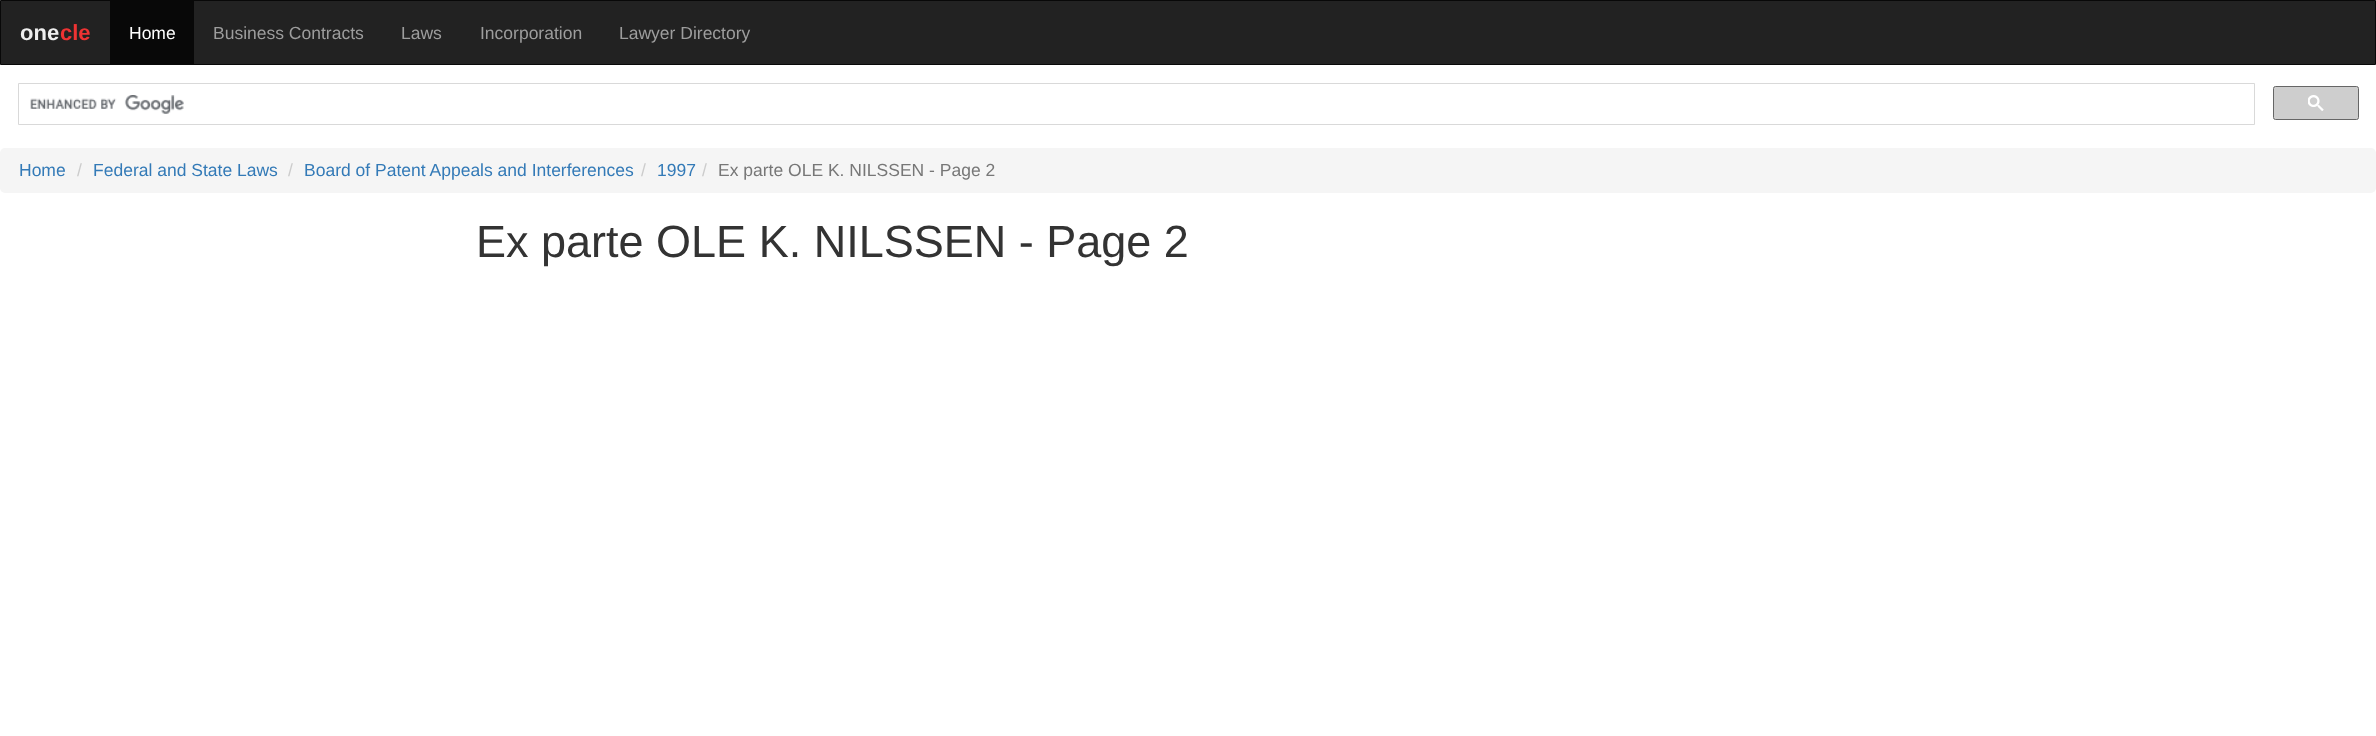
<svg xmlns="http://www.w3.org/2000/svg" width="2376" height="736">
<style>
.a{font:bold 22px Liberation Sans;fill:#eee}
.b{font:bold 22px Liberation Sans;fill:#e33}
.c{font:17.5px Liberation Sans;fill:#fff}
.d{font:17.5px Liberation Sans;fill:#9d9d9d}
.e{font:17.5px Liberation Sans;fill:#337ab7}
.f{font:17.5px Liberation Sans;fill:#ccc}
.g{font:17.5px Liberation Sans;fill:#777}
.h{font:45px Liberation Sans;fill:#333}
</style>
<rect width="100%" height="100%" fill="#fff"/>
<path fill="#222" stroke="#080808" d="M0.5 0.5h2375v64H0.5z"/>
<path fill="#080808" d="M110 1h84v63H110z"/>
<path fill="none" stroke="#d9d9d9" d="M18.5 83.5h2236v41H18.5z"/>
<image href="1.png" x="30" y="95" width="154" height="19"/>
<rect fill="#cecece" stroke="#666" x="2273.5" y="86.5" width="85" height="33" rx="2"/>
<image href="2.png" x="2308" y="95" width="16" height="16"/>
<rect fill="#f5f5f5" y="148" width="2376" height="45" rx="5"/>
<text class="a" x="20" y="40">one</text>
<text class="b" x="60" y="40">cle</text>
<text class="c" x="129" y="39">Home</text>
<text class="d" x="213" y="39">Business Contracts</text>
<text class="d" x="401" y="39">Laws</text>
<text class="d" x="480" y="39">Incorporation</text>
<text class="d" x="619" y="39">Lawyer Directory</text>
<text class="e" x="19" y="176">Home</text>
<text class="f" x="77" y="176">/</text>
<text class="e" x="93" y="176">Federal and State Laws</text>
<text class="f" x="288" y="176">/</text>
<text class="e" x="304" y="176">Board of Patent Appeals and Interferences</text>
<text class="f" x="641" y="176">/</text>
<text class="e" x="657" y="176">1997</text>
<text class="f" x="702" y="176">/</text>
<text class="g" x="718" y="176">Ex parte OLE K. NILSSEN - Page 2</text>
<text class="h" x="476" y="257">Ex parte OLE K. NILSSEN - Page 2</text>
</svg>
